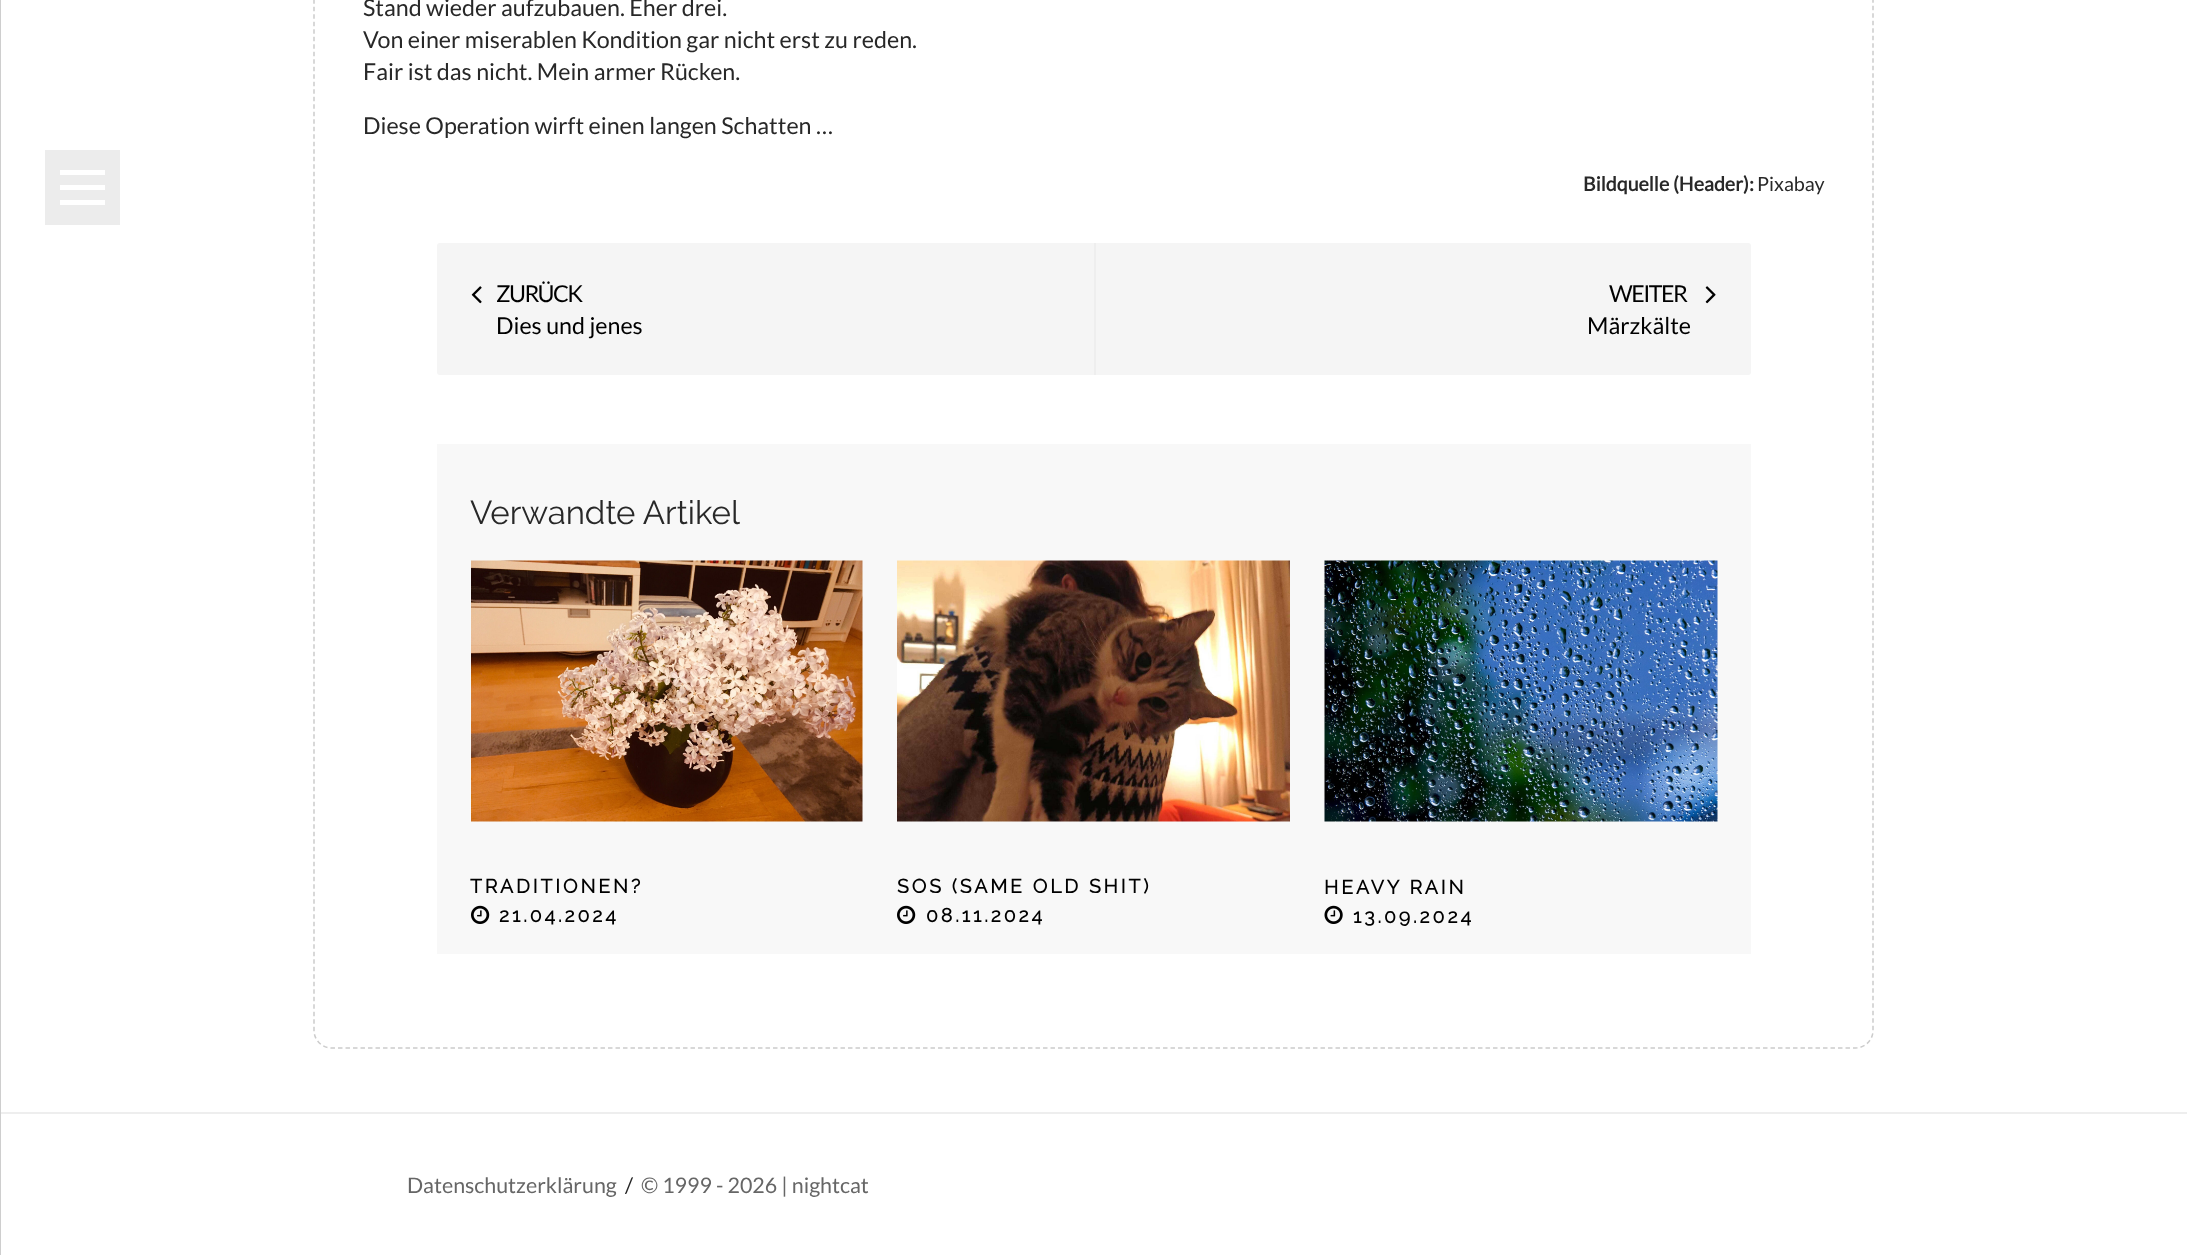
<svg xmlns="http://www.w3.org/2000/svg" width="2187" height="1255">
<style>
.a{font:22.8px Lato;fill:#282828}
.b{font:bold 19.25px Lato;fill:#282828}
.c{font:19.25px Lato;fill:#282828}
.d{font:22.8px Lato;letter-spacing:-1.5px;fill:#000}
.e{font:22.8px Lato;fill:#000}
.f{font:33px Raleway;fill:#282828}
.g{font:bold 19.4px Raleway;letter-spacing:2.9px;fill:#000}
.h{font:21px Lato;fill:#666}
.i{font:21px Lato;fill:#282828}
</style>
<rect width="100%" height="100%" fill="#fff"/>
<path fill="none" stroke="#ccc" stroke-width="1.5" stroke-dasharray="4.5 3" d="M331.5-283h1524c9.5 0 17.5 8 17.5 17.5v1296c0 9.5-8 17.5-17.5 17.5h-1524c-9.5 0-17.5-8-17.5-17.5v-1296c0-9.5 8-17.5 17.5-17.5z"/>
<path fill="#eee" d="M0 1112h2187v2H0z"/>
<path fill="#cecece" d="M0 0h1v1255H0z"/>
<rect fill="#f5f5f5" x="437" y="243" width="1314" height="132" rx="3"/>
<image href="1.png" x="471" y="286" width="11" height="18"/>
<path fill="#eee" d="M1094 243h2v132H1094z"/>
<image href="2.png" x="1705" y="286" width="11" height="18"/>
<path fill="#f8f8f8" d="M437 444h1314v510H437z"/>
<image href="3.png" x="471" y="560" width="392" height="262"/>
<image href="4.png" x="471" y="905" width="19" height="19"/>
<image href="5.png" x="897" y="560" width="393" height="262"/>
<image href="4.png" x="897" y="905" width="19" height="19"/>
<image href="6.png" x="1324" y="560" width="394" height="262"/>
<image href="7.png" x="1324" y="905" width="19" height="19"/>
<path fill="#ececec" d="M45 150h75v75H45z"/>
<path fill="#fff" d="M60 170h45v5H60z"/>
<path fill="#fff" d="M60 185h45v5H60z"/>
<path fill="#fff" d="M60 200h45v5H60z"/>
<text class="a" x="363" y="16">Stand wieder aufzubauen. Eher drei.</text>
<text class="a" x="363" y="48">Von einer miserablen Kondition gar nicht erst zu reden.</text>
<text class="a" x="363" y="80">Fair ist das nicht. Mein armer Rücken.</text>
<text class="a" x="363" y="134">Diese Operation wirft einen langen Schatten …</text>
<text class="b" x="1583" y="191">Bildquelle (Header):</text>
<text class="c" x="1757" y="191">Pixabay</text>
<text class="d" x="496" y="302">ZURÜCK</text>
<text class="e" x="496" y="334">Dies und jenes</text>
<text class="d" x="1609" y="302">WEITER</text>
<text class="e" x="1587" y="334">Märzkälte</text>
<text class="f" x="470" y="524">Verwandte Artikel</text>
<text class="g" x="470" y="893">TRADITIONEN?</text>
<text class="g" x="499" y="922">21.04.2024</text>
<text class="g" x="897" y="893">SOS (SAME OLD SHIT)</text>
<text class="g" x="926" y="922">08.11.2024</text>
<text class="g" x="1324" y="894">HEAVY RAIN</text>
<text class="g" x="1353" y="923">13.09.2024</text>
<text class="h" x="407" y="1193">Datenschutzerklärung</text>
<text class="i" x="625" y="1193">/</text>
<text class="h" x="641" y="1193">© 1999 - 2026 | nightcat</text>
</svg>
